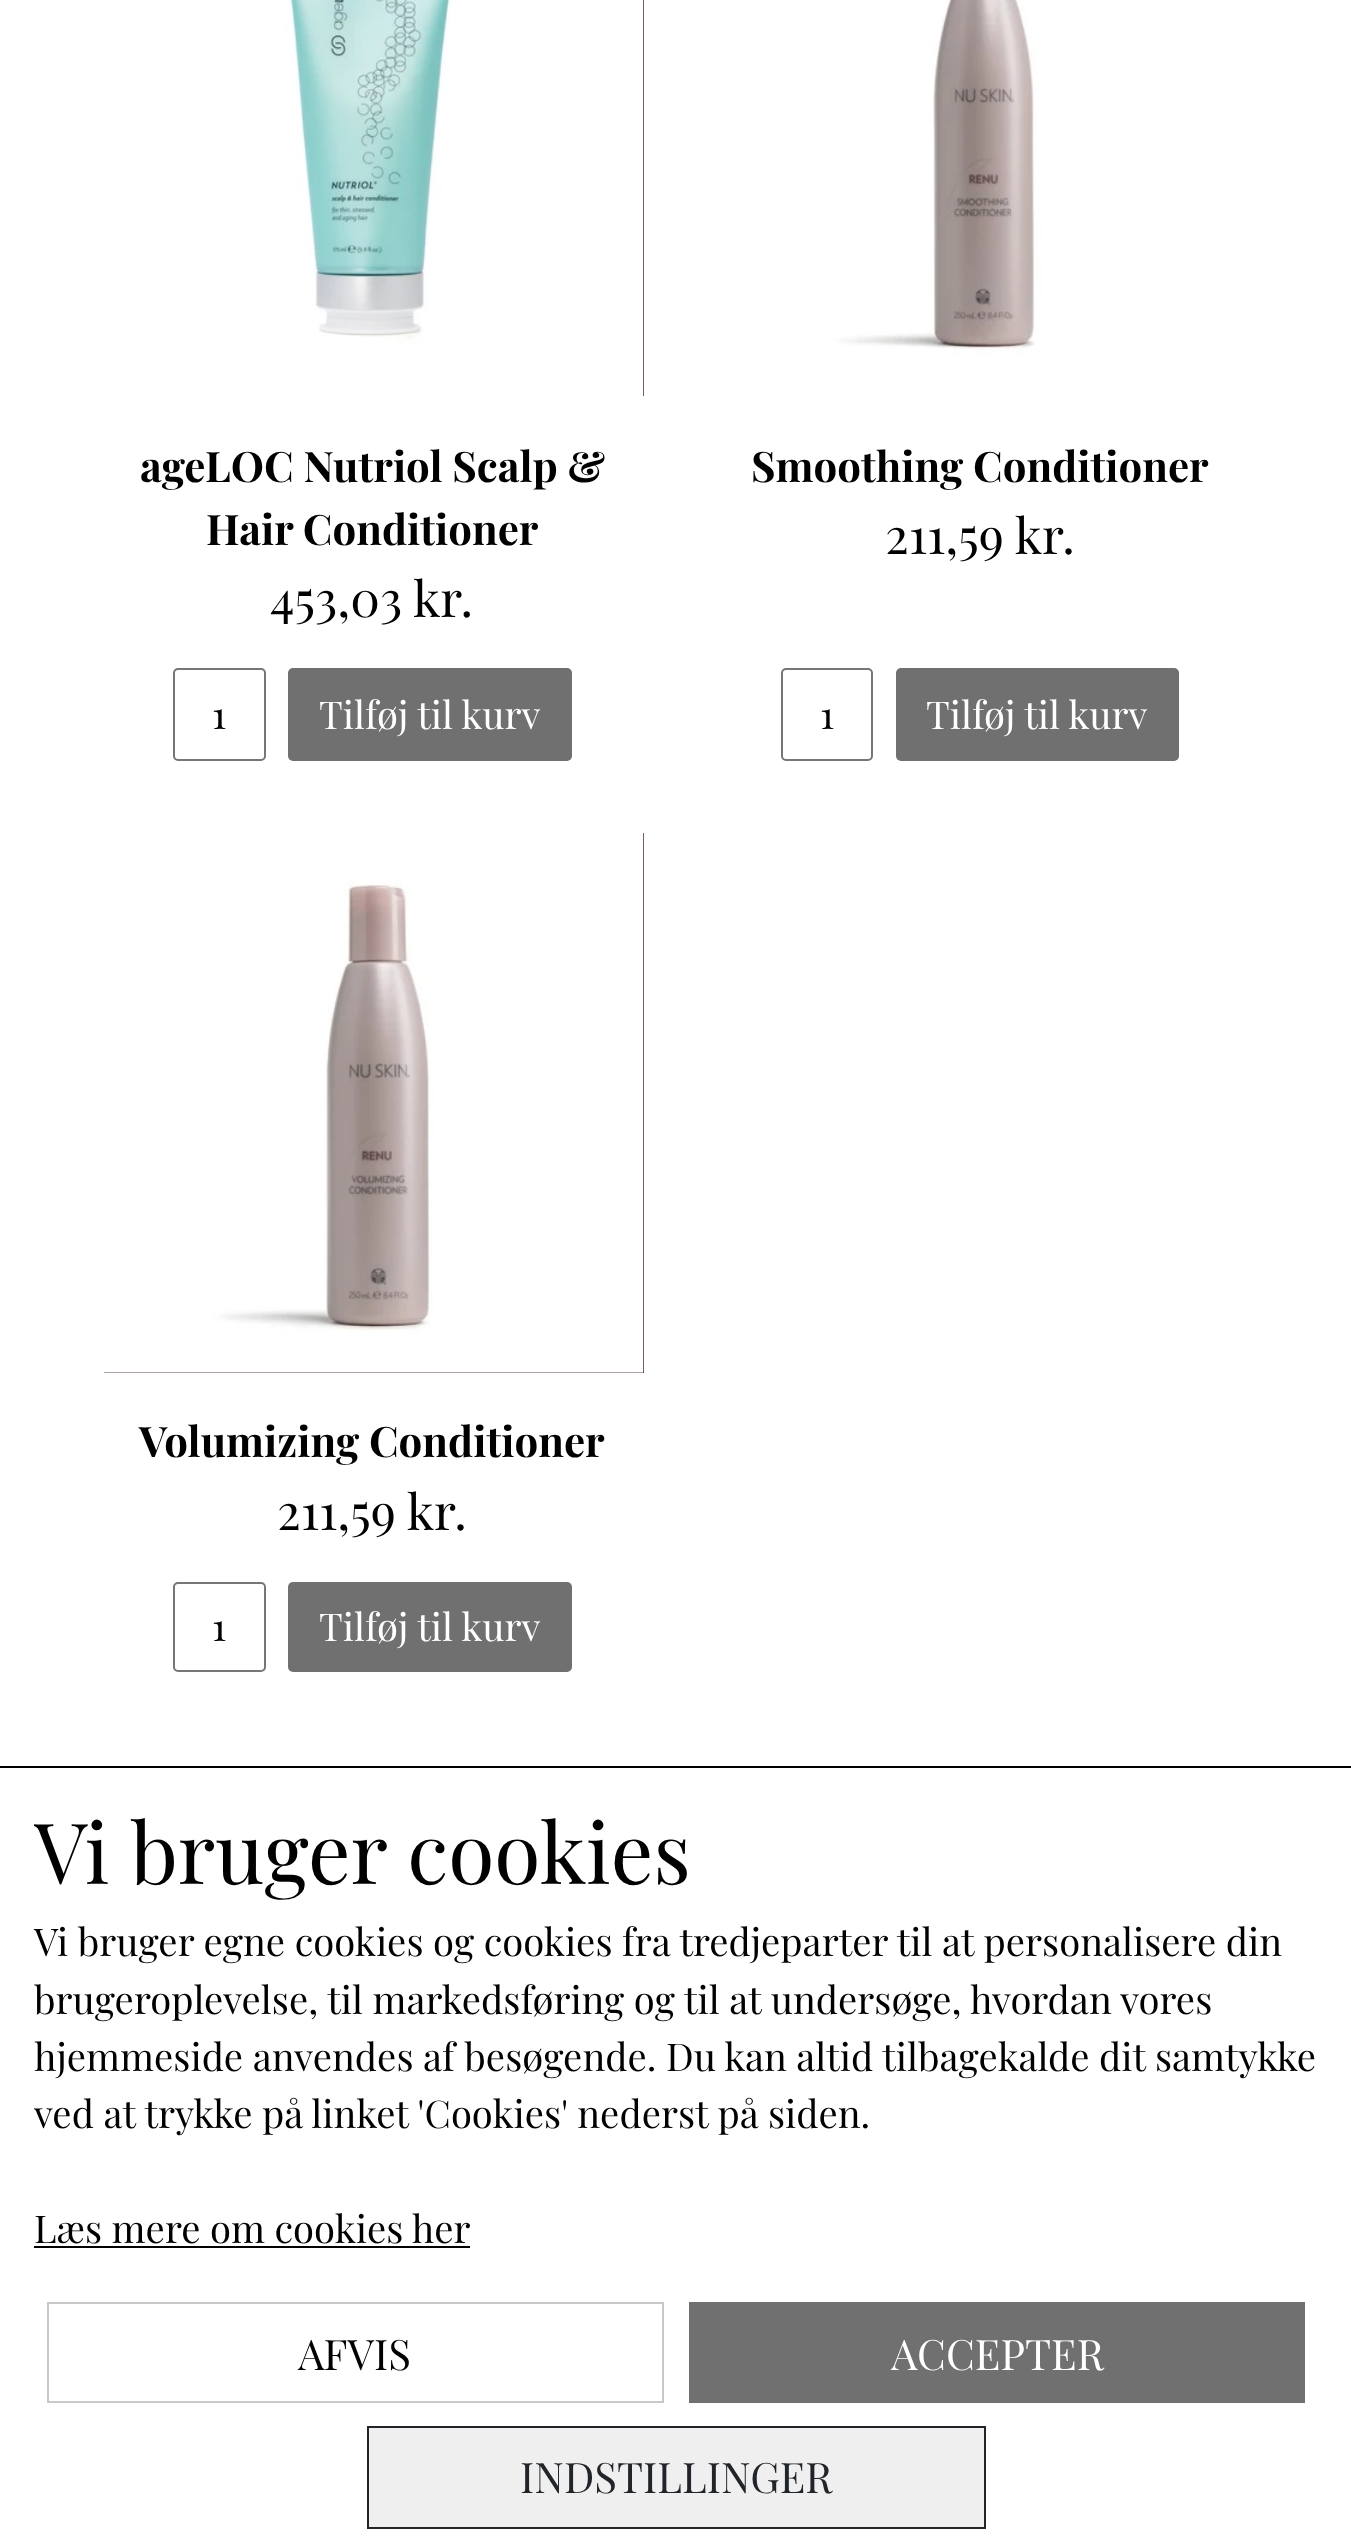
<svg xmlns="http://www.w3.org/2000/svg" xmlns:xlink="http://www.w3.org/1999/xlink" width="1351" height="2546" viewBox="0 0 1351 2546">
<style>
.cls-1{font:bold 42px Playfair Display;fill:#000000}
.cls-2{font:49.5px Playfair Display;fill:#000000}
.cls-3{font:38.25px Playfair Display;fill:#000000}
.cls-4{font:38.25px Playfair Display;fill:#ffffff}
.cls-5{font:84.25px Playfair Display;fill:#000000}
.cls-6{font:42px Playfair Display;fill:#000000}
.cls-7{font:42px Playfair Display;fill:#ffffff}
.cls-8{font:42px Playfair Display;fill:#212529}
</style>
<defs>
<clipPath id="clip1"><rect x="34" y="1787" width="1285" height="355"/></clipPath>
</defs>
<rect width="100%" height="100%" fill="#ffffff"/>
<rect fill="#44273c" x="643" y="0" width="1" height="396"/>
<image xlink:href="image0.png" x="104" y="0" width="540" height="396"/>
<rect fill="none" stroke="#767676" stroke-width="2" x="174" y="669" width="91" height="91" rx="4"/>
<rect fill="#707070" x="288" y="668" width="284" height="93" rx="5"/>
<image xlink:href="image1.png" x="711" y="0" width="540" height="396"/>
<rect fill="none" stroke="#767676" stroke-width="2" x="782" y="669" width="90" height="91" rx="4"/>
<rect fill="#707070" x="896" y="668" width="283" height="93" rx="5"/>
<rect fill="#44273c" x="104" y="833" width="540" height="540"/>
<image xlink:href="image2.png" x="104" y="833" width="540" height="540"/>
<rect fill="none" stroke="#767676" stroke-width="2" x="174" y="1583" width="91" height="88" rx="4"/>
<rect fill="#707070" x="288" y="1582" width="284" height="90" rx="5"/>
<rect fill="#000000" x="0" y="1766" width="1351" height="2"/>
<rect fill="#000000" x="34" y="2246" width="436" height="2"/>
<rect fill="none" stroke="#c8c8c8" stroke-width="2" x="48" y="2303" width="615" height="99"/>
<rect fill="#707070" x="689" y="2302" width="616" height="101"/>
<rect fill="#efefef" stroke="#212529" stroke-width="2" x="368" y="2427" width="617" height="101"/>
<text class="cls-1" x="140" y="482">ageLOC Nutriol Scalp &amp;</text>
<text class="cls-1" x="206" y="545">Hair Conditioner</text>
<text class="cls-2" x="270" y="617">453,03 kr.</text>
<text class="cls-3" x="212" y="729">1</text>
<text class="cls-4" x="319" y="729">Tilføj til kurv</text>
<text class="cls-1" x="751" y="482">Smoothing Conditioner</text>
<text class="cls-2" x="885" y="554">211,59 kr.</text>
<text class="cls-3" x="820" y="729">1</text>
<text class="cls-4" x="926" y="729">Tilføj til kurv</text>
<text class="cls-1" x="139" y="1457">Volumizing Conditioner</text>
<text class="cls-2" x="277" y="1530">211,59 kr.</text>
<text class="cls-3" x="212" y="1641">1</text>
<text class="cls-4" x="319" y="1641">Tilføj til kurv</text>
<g clip-path="url(#clip1)">
<text class="cls-5" x="34" y="1884">Vi bruger cookies</text>
</g>
<text class="cls-3"><tspan x="34" y="1956">Vi bruger egne cookies og cookies fra tredjeparter til at personalisere din</tspan><tspan x="34" y="2014">brugeroplevelse, til markedsføring og til at undersøge, hvordan vores</tspan><tspan x="34" y="2071">hjemmeside anvendes af besøgende. Du kan altid tilbagekalde dit samtykke</tspan><tspan x="34" y="2128">ved at trykke på linket 'Cookies' nederst på siden.</tspan></text>
<text class="cls-3" x="34" y="2243">Læs mere om cookies her</text>
<text class="cls-6" x="298" y="2370">AFVIS</text>
<text class="cls-7" x="891" y="2370">ACCEPTER</text>
<text class="cls-8" x="520" y="2493">INDSTILLINGER</text>
</svg>
